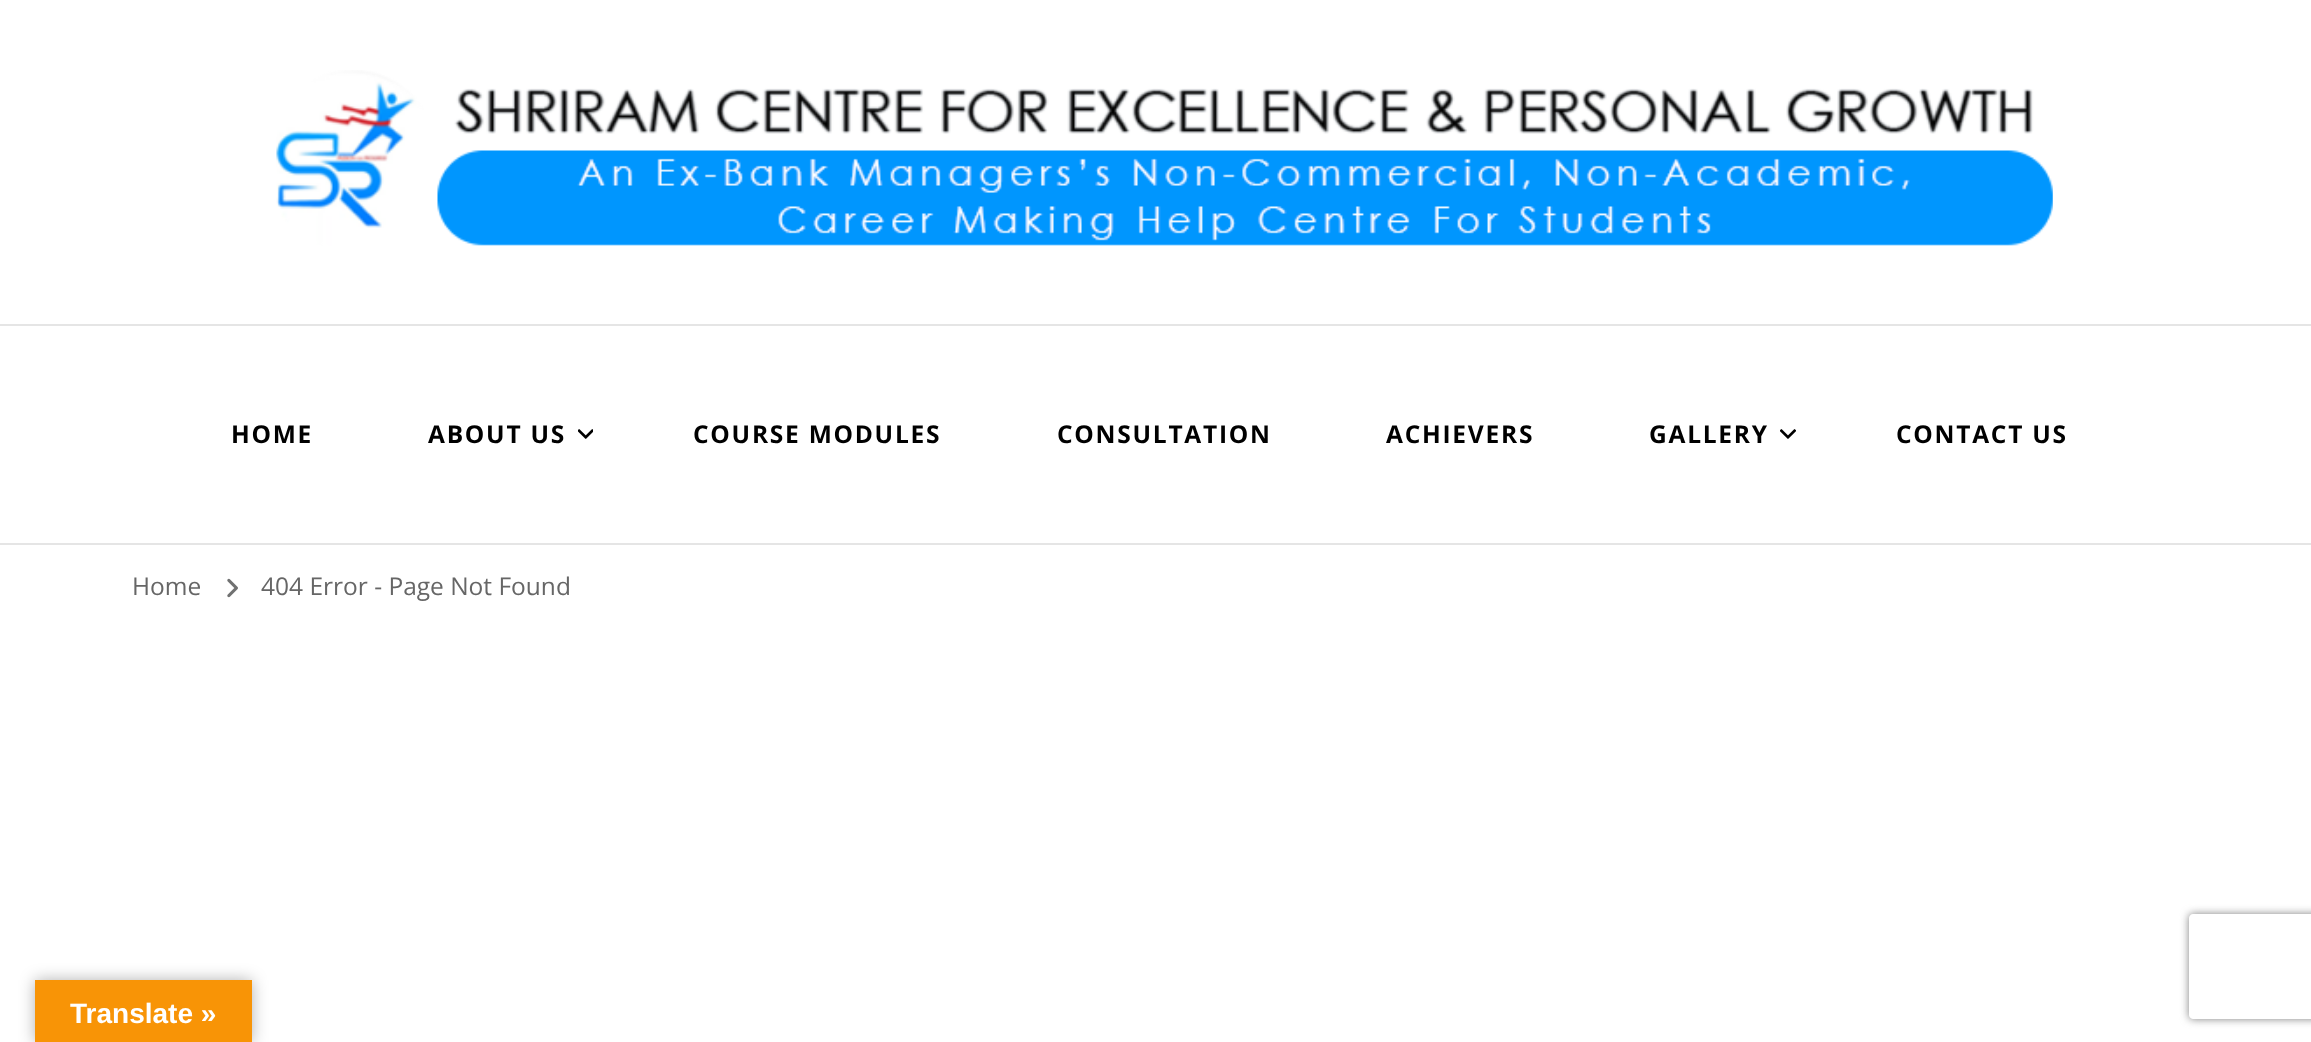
<svg xmlns="http://www.w3.org/2000/svg" xmlns:xlink="http://www.w3.org/1999/xlink" width="2311" height="1042" viewBox="0 0 2311 1042">
<style>
.cls-1{font:bold 24.5px Open Sans;letter-spacing:1.75px;fill:#000000}
.cls-2{font:24.5px Open Sans;fill:#666666}
.cls-3{font:bold 28px Liberation Sans;fill:#ffffff}
</style>
<defs>
<clipPath id="clip1"><path d="M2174 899H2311V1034H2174ZM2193 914H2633C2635 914 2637 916 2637 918V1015C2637 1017 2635 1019 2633 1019H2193C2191 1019 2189 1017 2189 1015V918C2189 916 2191 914 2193 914Z" clip-rule="evenodd"/></clipPath>
</defs>
<rect width="100%" height="100%" fill="#ffffff"/>
<rect fill="#e5e5e5" x="0" y="543" width="2311" height="2"/>
<rect fill="#e5e5e5" x="0" y="324" width="2311" height="2"/>
<image xlink:href="image0.png" x="276" y="70" width="1777" height="176"/>
<image xlink:href="image1.png" x="578" y="429" width="15" height="10"/>
<image xlink:href="image2.png" x="1780" y="429" width="16" height="10"/>
<image xlink:href="image3.png" x="227" y="578" width="11" height="20"/>
<rect fill="#000000" fill-opacity="0.3" filter="blur(8px)" x="35" y="980" width="217" height="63"/>
<rect fill="#f89406" x="35" y="980" width="217" height="62"/>
<g clip-path="url(#clip1)">
<rect fill="#808080" filter="blur(4.5px)" x="2189" y="914" width="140" height="105" rx="4"/>
</g>
<text class="cls-1" x="231" y="443">HOME</text>
<text class="cls-1" x="428" y="443">ABOUT US</text>
<text class="cls-1" x="693" y="443">COURSE MODULES</text>
<text class="cls-1" x="1057" y="443">CONSULTATION</text>
<text class="cls-1" x="1386" y="443">ACHIEVERS</text>
<text class="cls-1" x="1649" y="443">GALLERY</text>
<text class="cls-1" x="1896" y="443">CONTACT US</text>
<text class="cls-2" x="132" y="595">Home</text>
<text class="cls-2" x="261" y="595">404 Error - Page Not Found</text>
<text class="cls-3" x="70" y="1023">Translate »</text>
</svg>
